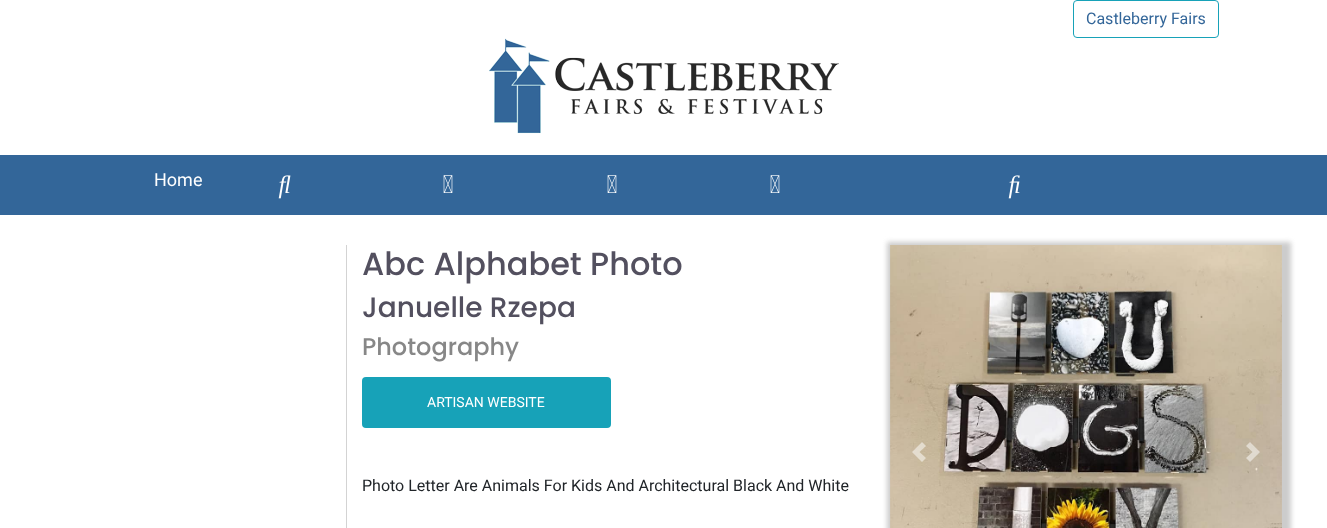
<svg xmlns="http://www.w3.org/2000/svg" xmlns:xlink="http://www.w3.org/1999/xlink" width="1327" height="528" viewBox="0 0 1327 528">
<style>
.cls-1{font:16px Roboto;fill:#336699}
.cls-2{font:18px Roboto;fill:#ffffff}
.cls-3{font:500 32px Poppins;fill:#53505f}
.cls-4{font:500 28px Poppins;fill:#53505f}
.cls-5{font:500 24px Poppins;fill:#878787}
.cls-6{font:14px Roboto;fill:#ffffff}
.cls-7{font:16px Roboto;fill:#212529}
</style>
<rect width="100%" height="100%" fill="#ffffff"/>
<rect fill="none" stroke="#17a2b8" x="1073.5" y="0.5" width="145" height="37" rx="3.5"/>
<image xlink:href="image0.png" x="489" y="38" width="350" height="96"/>
<rect fill="#336699" x="0" y="155" width="1327" height="60"/>
<image xlink:href="image1.png" x="278" y="175" width="13" height="24"/>
<image xlink:href="image2.png" x="443" y="175" width="10" height="18"/>
<image xlink:href="image2.png" x="607" y="175" width="10" height="18"/>
<image xlink:href="image2.png" x="770" y="175" width="10" height="18"/>
<image xlink:href="image3.png" x="1008" y="175" width="12" height="24"/>
<rect fill="#d3d3d3" x="346" y="245" width="1" height="283"/>
<rect fill="#17a2b8" x="362" y="377" width="249" height="51" rx="4"/>
<rect fill="#cccccc" filter="blur(2.5px)" x="887" y="242" width="404" height="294"/>
<image xlink:href="image4.png" x="890" y="245" width="392" height="283"/>
<path fill="#ffffff" fill-opacity="0.5" d="M922 442L912 452L922 462L926 458L919.5 452L926 446Z"/>
<path fill="#ffffff" fill-opacity="0.5" d="M1250 442L1246 446L1252.5 452L1246 458L1250 462L1260 452Z"/>
<text class="cls-1" x="1086" y="24">Castleberry Fairs</text>
<text class="cls-2" x="154" y="186">Home</text>
<text class="cls-3" x="362" y="275">Abc Alphabet Photo</text>
<text class="cls-4" x="362" y="317">Januelle Rzepa</text>
<text class="cls-5" x="362" y="355">Photography</text>
<text class="cls-6" x="427" y="407">ARTISAN WEBSITE</text>
<text class="cls-7" x="362" y="491">Photo Letter Are Animals For Kids And Architectural Black And White</text>
</svg>
